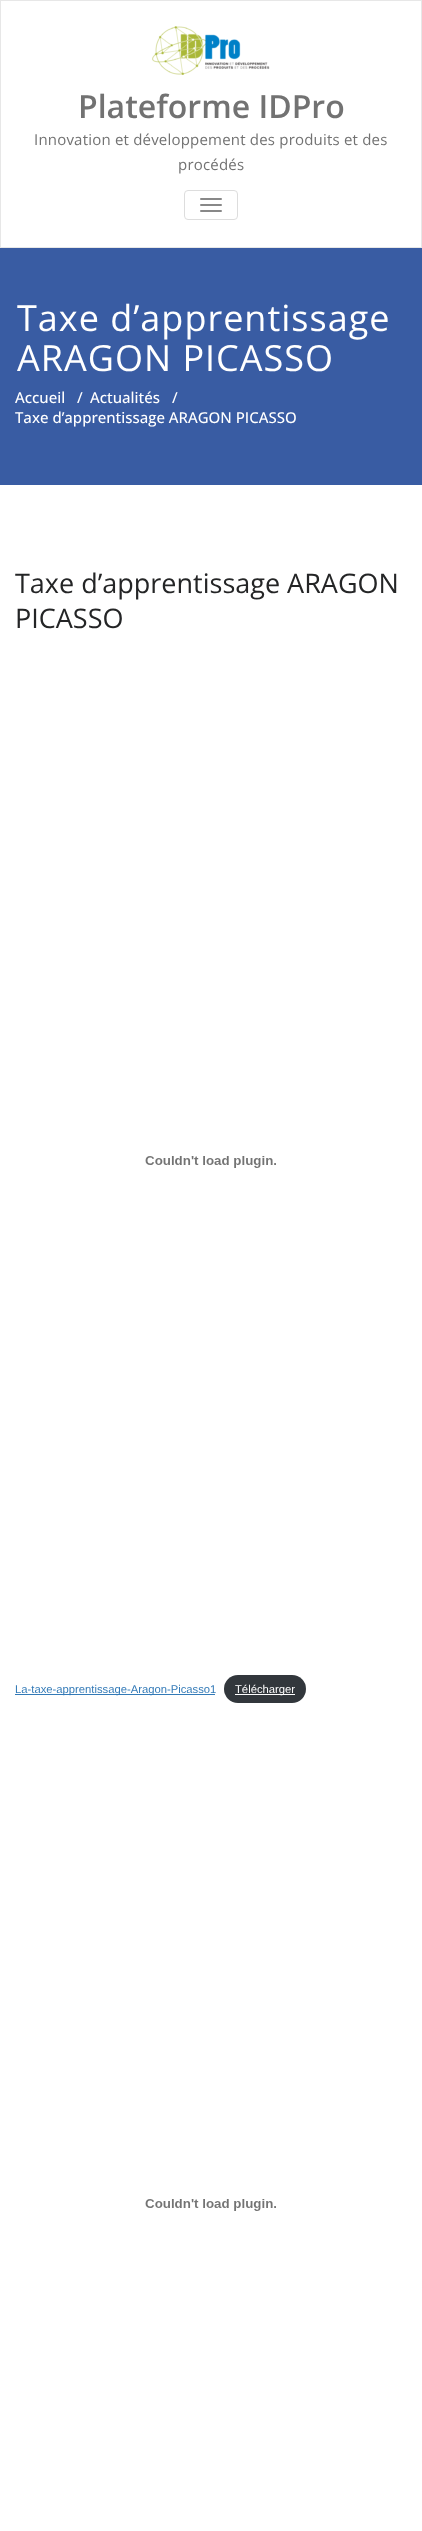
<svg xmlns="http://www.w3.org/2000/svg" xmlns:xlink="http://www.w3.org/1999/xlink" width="422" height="2531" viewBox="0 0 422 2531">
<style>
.cls-1{font:600 32px Open Sans;fill:#727272}
.cls-2{font:15px Open Sans;letter-spacing:0.2px;fill:#727272}
.cls-3{font:36px Open Sans;letter-spacing:1px;fill:#ffffff}
.cls-4{font:500 15px Open Sans;fill:#ffffff}
.cls-5{font:27px Open Sans;fill:#242526}
.cls-6{font:11.25px Liberation Sans;fill:#337ab7}
.cls-7{font:11.25px Liberation Sans;fill:#ffffff}
</style>
<rect width="100%" height="100%" fill="#ffffff"/>
<rect fill="none" stroke="#e7e7e7" x="0.5" y="0.5" width="421" height="247"/>
<image xlink:href="image0.png" x="152" y="26" width="118" height="49"/>
<rect fill="none" stroke="#dddddd" x="184.5" y="190.5" width="53" height="29" rx="3.5"/>
<rect fill="#888888" x="200" y="198" width="22" height="2" rx="1"/>
<rect fill="#888888" x="200" y="204" width="22" height="2" rx="1"/>
<rect fill="#888888" x="200" y="210" width="22" height="2" rx="1"/>
<rect fill="#395ca3" x="0" y="248" width="422" height="237"/>
<image xlink:href="image1.png" x="145" y="1156" width="131" height="12"/>
<rect fill="#337ab7" x="15" y="1694" width="200" height="1"/>
<rect fill="#32373c" x="224" y="1675" width="82" height="28" rx="14"/>
<rect fill="#ffffff" x="235" y="1694" width="60" height="1"/>
<image xlink:href="image1.png" x="145" y="2199" width="131" height="12"/>
<text class="cls-1" x="78" y="118">Plateforme IDPro</text>
<text class="cls-2" x="34" y="145">Innovation et développement des produits et des</text>
<text class="cls-2" x="178" y="170">procédés</text>
<text class="cls-3"><tspan x="17" y="331">Taxe d’apprentissage</tspan><tspan x="17" y="371">ARAGON PICASSO</tspan></text>
<text class="cls-4" x="15" y="403">Accueil</text>
<text class="cls-4" x="77" y="403">/</text>
<text class="cls-4" x="90" y="403">Actualités</text>
<text class="cls-4" x="172" y="403">/</text>
<text class="cls-4" x="15" y="423">Taxe d’apprentissage ARAGON PICASSO</text>
<text class="cls-5"><tspan x="15" y="593">Taxe d’apprentissage ARAGON</tspan><tspan x="15" y="628">PICASSO</tspan></text>
<text class="cls-6" x="15" y="1693">La-taxe-apprentissage-Aragon-Picasso1</text>
<text class="cls-7" x="235" y="1693">Télécharger</text>
</svg>
